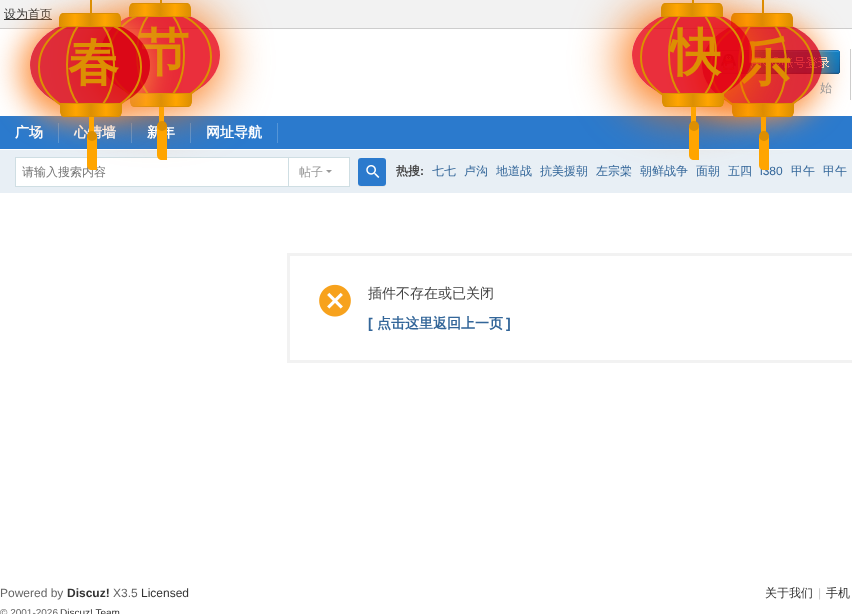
<svg xmlns="http://www.w3.org/2000/svg" xmlns:xlink="http://www.w3.org/1999/xlink" width="852" height="614" viewBox="0 0 852 614">
<style>
.cls-1{font:500 12px WenQuanYi Zen Hei;fill:#333333}
.cls-2{font:bold 51px WenQuanYi Zen Hei;fill:#dc8f03}
.cls-3{font:500 12px WenQuanYi Zen Hei;fill:#999999}
.cls-4{font:bold 14px WenQuanYi Zen Hei;fill:#ffffff}
.cls-5{font:500 12px WenQuanYi Zen Hei;fill:#757575}
.cls-6{font:bold 12px WenQuanYi Zen Hei;fill:#444444}
.cls-7{font:bold 12px Liberation Sans;fill:#444444}
.cls-8{font:500 12px WenQuanYi Zen Hei;fill:#336699}
.cls-9{font:12px Liberation Sans;fill:#336699}
.cls-10{font:500 14px WenQuanYi Zen Hei;fill:#444444}
.cls-11{font:bold 14px Liberation Sans;fill:#336699}
.cls-12{font:bold 14px WenQuanYi Zen Hei;fill:#336699}
.cls-13{font:12px Liberation Sans;fill:#666666}
.cls-14{font:bold 12px Liberation Sans;fill:#333333}
.cls-15{font:12px Liberation Sans;fill:#333333}
.cls-16{font:10px Liberation Sans;fill:#666666}
.cls-17{font:10px Liberation Sans;fill:#333333}
.cls-18{font:12px Liberation Sans;fill:#cccccc}
</style>
<defs>
<clipPath id="clip1"><path d="M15 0H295V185H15ZM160 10C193 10 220 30 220 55C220 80 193 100 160 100C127 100 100 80 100 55C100 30 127 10 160 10Z" clip-rule="evenodd"/></clipPath>
<clipPath id="clip2"><path d="M134 3H186C189 3 191 5 191 8V17H129V8C129 5 131 3 134 3Z"/></clipPath>
<linearGradient id="g1" gradientUnits="userSpaceOnUse" x1="130" y1="10" x2="190" y2="10"><stop offset="0" stop-color="#dc8f03"/><stop offset="0.25" stop-color="#ffa500"/><stop offset="0.5" stop-color="#dc8f03"/><stop offset="0.75" stop-color="#ffa500"/><stop offset="1" stop-color="#dc8f03"/></linearGradient>
<clipPath id="clip3"><path d="M130 93H192V102C192 105 190 107 187 107H135C132 107 130 105 130 102Z"/></clipPath>
<linearGradient id="g2" gradientUnits="userSpaceOnUse" x1="131" y1="100" x2="191" y2="100"><stop offset="0" stop-color="#dc8f03"/><stop offset="0.25" stop-color="#ffa500"/><stop offset="0.5" stop-color="#dc8f03"/><stop offset="0.75" stop-color="#ffa500"/><stop offset="1" stop-color="#dc8f03"/></linearGradient>
<clipPath id="clip4"><path d="M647 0H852V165H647ZM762 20C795 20 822 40 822 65C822 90 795 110 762 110C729 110 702 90 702 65C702 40 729 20 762 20Z" clip-rule="evenodd"/></clipPath>
<clipPath id="clip5"><path d="M736 13H788C791 13 793 15 793 18V27H731V18C731 15 733 13 736 13Z"/></clipPath>
<linearGradient id="g3" gradientUnits="userSpaceOnUse" x1="732" y1="20" x2="792" y2="20"><stop offset="0" stop-color="#dc8f03"/><stop offset="0.25" stop-color="#ffa500"/><stop offset="0.5" stop-color="#dc8f03"/><stop offset="0.75" stop-color="#ffa500"/><stop offset="1" stop-color="#dc8f03"/></linearGradient>
<clipPath id="clip6"><path d="M732 103H794V112C794 115 792 117 789 117H737C734 117 732 115 732 112Z"/></clipPath>
<linearGradient id="g4" gradientUnits="userSpaceOnUse" x1="733" y1="110" x2="793" y2="110"><stop offset="0" stop-color="#dc8f03"/><stop offset="0.25" stop-color="#ffa500"/><stop offset="0.5" stop-color="#dc8f03"/><stop offset="0.75" stop-color="#ffa500"/><stop offset="1" stop-color="#dc8f03"/></linearGradient>
<clipPath id="clip7"><path d="M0 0H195V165H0ZM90 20C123 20 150 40 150 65C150 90 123 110 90 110C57 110 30 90 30 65C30 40 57 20 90 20Z" clip-rule="evenodd"/></clipPath>
<clipPath id="clip8"><path d="M64 13H116C119 13 121 15 121 18V27H59V18C59 15 61 13 64 13Z"/></clipPath>
<linearGradient id="g5" gradientUnits="userSpaceOnUse" x1="60" y1="20" x2="120" y2="20"><stop offset="0" stop-color="#dc8f03"/><stop offset="0.25" stop-color="#ffa500"/><stop offset="0.5" stop-color="#dc8f03"/><stop offset="0.75" stop-color="#ffa500"/><stop offset="1" stop-color="#dc8f03"/></linearGradient>
<clipPath id="clip9"><path d="M60 103H122V112C122 115 120 117 117 117H65C62 117 60 115 60 112Z"/></clipPath>
<linearGradient id="g6" gradientUnits="userSpaceOnUse" x1="61" y1="110" x2="121" y2="110"><stop offset="0" stop-color="#dc8f03"/><stop offset="0.25" stop-color="#ffa500"/><stop offset="0.5" stop-color="#dc8f03"/><stop offset="0.75" stop-color="#ffa500"/><stop offset="1" stop-color="#dc8f03"/></linearGradient>
<clipPath id="clip10"><path d="M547 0H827V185H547ZM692 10C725 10 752 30 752 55C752 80 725 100 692 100C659 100 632 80 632 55C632 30 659 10 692 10Z" clip-rule="evenodd"/></clipPath>
<clipPath id="clip11"><path d="M666 3H718C721 3 723 5 723 8V17H661V8C661 5 663 3 666 3Z"/></clipPath>
<linearGradient id="g7" gradientUnits="userSpaceOnUse" x1="662" y1="10" x2="722" y2="10"><stop offset="0" stop-color="#dc8f03"/><stop offset="0.25" stop-color="#ffa500"/><stop offset="0.5" stop-color="#dc8f03"/><stop offset="0.75" stop-color="#ffa500"/><stop offset="1" stop-color="#dc8f03"/></linearGradient>
<clipPath id="clip12"><path d="M662 93H724V102C724 105 722 107 719 107H667C664 107 662 105 662 102Z"/></clipPath>
<linearGradient id="g8" gradientUnits="userSpaceOnUse" x1="663" y1="100" x2="723" y2="100"><stop offset="0" stop-color="#dc8f03"/><stop offset="0.25" stop-color="#ffa500"/><stop offset="0.5" stop-color="#dc8f03"/><stop offset="0.75" stop-color="#ffa500"/><stop offset="1" stop-color="#dc8f03"/></linearGradient>
</defs>
<rect width="100%" height="100%" fill="#ffffff"/>
<rect fill="#f2f2f2" x="0" y="0" width="852" height="28"/>
<rect fill="#cdcdcd" x="0" y="28" width="852" height="1"/>
<rect fill="#333333" x="4" y="19" width="48" height="1"/>
<rect fill="#2b7acd" x="0" y="116" width="852" height="33"/>
<rect fill="#5595d7" x="58" y="123" width="1" height="20"/>
<rect fill="#5595d7" x="131" y="123" width="1" height="20"/>
<rect fill="#5595d7" x="190" y="123" width="1" height="20"/>
<rect fill="#5595d7" x="277" y="123" width="1" height="20"/>
<rect fill="#e8eff5" x="0" y="150" width="852" height="43"/>
<rect fill="#cfdee3" x="287" y="157" width="63" height="1"/>
<rect fill="#cfdee3" x="349" y="157" width="1" height="30"/>
<rect fill="#cfdee3" x="287" y="186" width="63" height="1"/>
<rect fill="#ffffff" stroke="#cfdee3" x="15.5" y="157.5" width="273" height="29"/>
<rect fill="#ffffff" x="289" y="158" width="60" height="28"/>
<g clip-path="url(#clip1)">
<rect fill="#fa6c00" filter="blur(25px)" x="91" y="11" width="128" height="98" rx="49"/>
</g>
<ellipse fill="#e70211" fill-opacity="0.8" cx="160" cy="55" rx="60" ry="45"/>
<ellipse fill="#d8000f" fill-opacity="0.1" cx="160" cy="57" rx="52" ry="47"/>
<path fill="none" stroke="#dc8f03" stroke-width="2" d="M160 11C188 11 211 31.5 211 57C211 82.5 188 103 160 103C132 103 109 82.5 109 57C109 31.5 132 11 160 11Z"/>
<ellipse fill="#d8000f" fill-opacity="0.1" cx="160.5" cy="55" rx="24.5" ry="47"/>
<path fill="none" stroke="#dc8f03" stroke-width="2" d="M160.5 9C173.5 9 184 29.5 184 55C184 80.5 173.5 101 160.5 101C147.5 101 137 80.5 137 55C137 29.5 147.5 9 160.5 9Z"/>
<rect fill="#dc8f03" x="160" y="0" width="2" height="10"/>
<g clip-path="url(#clip2)">
<rect fill="url(#g1)" x="130" y="3" width="60" height="13"/>
</g>
<path fill="none" stroke="#dc8f03" d="M134 3.5H186C188.5 3.5 190.5 5.5 190.5 8V16.5H129.5V8C129.5 5.5 131.5 3.5 134 3.5Z"/>
<g clip-path="url(#clip3)">
<rect fill="url(#g2)" x="131" y="94" width="60" height="13"/>
</g>
<path fill="none" stroke="#dc8f03" d="M130.5 93.5H191.5V102C191.5 104.5 189.5 106.5 187 106.5H135C132.5 106.5 130.5 104.5 130.5 102Z"/>
<rect fill="#cdcdcd" x="850" y="49" width="1" height="51"/>
<image xlink:href="image0.png" x="716" y="50" width="124" height="24"/>
<g clip-path="url(#clip4)">
<rect fill="#fc903d" filter="blur(15px)" x="693" y="21" width="128" height="98" rx="49"/>
</g>
<rect fill="#ffa500" x="761" y="117" width="5" height="20"/>
<path fill="#999999" d="M326 170H332L329 173Z"/>
<path fill="#e5e5e5" d="M358 183C358 187.5 361 187 364.5 187H379.5C383 187 386 187.5 386 183C386 184.5 384.5 186 383 186H361C359.5 186 358 184.5 358 183Z"/>
<rect fill="#2b7acd" x="358" y="158" width="28" height="28" rx="3"/>
<image xlink:href="image1.png" x="366" y="165" width="14" height="13"/>
<rect fill="none" stroke="#f2f2f2" stroke-width="3" x="288.5" y="254.5" width="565" height="107"/>
<image xlink:href="image2.png" x="319" y="284" width="32" height="33"/>
<text class="cls-1" x="4" y="18">设为首页</text>
<text class="cls-2" x="138" y="70">节</text>
<text class="cls-3" x="820" y="92">始</text>
<ellipse fill="#d8000f" fill-opacity="0.8" cx="762" cy="65" rx="60" ry="45"/>
<ellipse fill="#d8000f" fill-opacity="0.1" cx="762" cy="67" rx="52" ry="47"/>
<path fill="none" stroke="#dc8f03" stroke-width="2" d="M762 21C790 21 813 41.5 813 67C813 92.5 790 113 762 113C734 113 711 92.5 711 67C711 41.5 734 21 762 21Z"/>
<ellipse fill="#d8000f" fill-opacity="0.1" cx="762.5" cy="65" rx="24.5" ry="47"/>
<path fill="none" stroke="#dc8f03" stroke-width="2" d="M762.5 19C775.5 19 786 39.5 786 65C786 90.5 775.5 111 762.5 111C749.5 111 739 90.5 739 65C739 39.5 749.5 19 762.5 19Z"/>
<rect fill="#dc8f03" x="762" y="0" width="2" height="20"/>
<g clip-path="url(#clip5)">
<rect fill="url(#g3)" x="732" y="13" width="60" height="13"/>
</g>
<path fill="none" stroke="#dc8f03" d="M736 13.5H788C790.5 13.5 792.5 15.5 792.5 18V26.5H731.5V18C731.5 15.5 733.5 13.5 736 13.5Z"/>
<g clip-path="url(#clip6)">
<rect fill="url(#g4)" x="733" y="104" width="60" height="13"/>
</g>
<path fill="none" stroke="#dc8f03" d="M732.5 103.5H793.5V112C793.5 114.5 791.5 116.5 789 116.5H737C734.5 116.5 732.5 114.5 732.5 112Z"/>
<text class="cls-2" x="740" y="80">乐</text>
<text class="cls-4" x="15" y="137">广场</text>
<text class="cls-4" x="74" y="137">心情墙</text>
<text class="cls-4" x="147" y="137">新年</text>
<rect fill="#ffa500" x="159" y="107" width="5" height="20"/>
<path fill="#ffa500" d="M157 125H167V160H162C159 160 157 158 157 155Z"/>
<circle fill="#dc8f03" cx="162" cy="126" r="5"/>
<g clip-path="url(#clip7)">
<rect fill="#fc903d" filter="blur(15px)" x="21" y="21" width="128" height="98" rx="49"/>
</g>
<ellipse fill="#d8000f" fill-opacity="0.8" cx="90" cy="65" rx="60" ry="45"/>
<ellipse fill="#d8000f" fill-opacity="0.1" cx="90" cy="67" rx="52" ry="47"/>
<path fill="none" stroke="#dc8f03" stroke-width="2" d="M90 21C118 21 141 41.5 141 67C141 92.5 118 113 90 113C62 113 39 92.5 39 67C39 41.5 62 21 90 21Z"/>
<ellipse fill="#d8000f" fill-opacity="0.1" cx="90.5" cy="65" rx="24.5" ry="47"/>
<path fill="none" stroke="#dc8f03" stroke-width="2" d="M90.5 19C103.5 19 114 39.5 114 65C114 90.5 103.5 111 90.5 111C77.5 111 67 90.5 67 65C67 39.5 77.5 19 90.5 19Z"/>
<rect fill="#dc8f03" x="90" y="0" width="2" height="20"/>
<g clip-path="url(#clip8)">
<rect fill="url(#g5)" x="60" y="13" width="60" height="13"/>
</g>
<path fill="none" stroke="#dc8f03" d="M64 13.5H116C118.5 13.5 120.5 15.5 120.5 18V26.5H59.5V18C59.5 15.5 61.5 13.5 64 13.5Z"/>
<g clip-path="url(#clip9)">
<rect fill="url(#g6)" x="61" y="104" width="60" height="13"/>
</g>
<path fill="none" stroke="#dc8f03" d="M60.5 103.5H121.5V112C121.5 114.5 119.5 116.5 117 116.5H65C62.5 116.5 60.5 114.5 60.5 112Z"/>
<rect fill="#ffa500" x="89" y="117" width="5" height="20"/>
<text class="cls-2" x="68" y="80">春</text>
<text class="cls-4" x="206" y="137">网址导航</text>
<text class="cls-5" x="22" y="176">请输入搜索内容</text>
<path fill="#ffa500" d="M87 135H97V170H92C89 170 87 168 87 165Z"/>
<circle fill="#dc8f03" cx="92" cy="136" r="5"/>
<text class="cls-3" x="299" y="176">帖子</text>
<text class="cls-6" x="396" y="175">热搜</text>
<text class="cls-7" x="420" y="175">:</text>
<text class="cls-8" x="432" y="175">七七</text>
<text class="cls-8" x="464" y="175">卢沟</text>
<text class="cls-8" x="496" y="175">地道战</text>
<text class="cls-8" x="540" y="175">抗美援朝</text>
<text class="cls-8" x="596" y="175">左宗棠</text>
<text class="cls-8" x="640" y="175">朝鲜战争</text>
<text class="cls-8" x="696" y="175">面朝</text>
<text class="cls-8" x="728" y="175">五四</text>
<text class="cls-9" x="760" y="175">i380</text>
<path fill="#ffa500" d="M759 135H769V170H764C761 170 759 168 759 165Z"/>
<circle fill="#dc8f03" cx="764" cy="136" r="5"/>
<g clip-path="url(#clip10)">
<rect fill="#fa6c00" filter="blur(25px)" x="623" y="11" width="128" height="98" rx="49"/>
</g>
<ellipse fill="#e70211" fill-opacity="0.8" cx="692" cy="55" rx="60" ry="45"/>
<ellipse fill="#d8000f" fill-opacity="0.1" cx="692" cy="57" rx="52" ry="47"/>
<path fill="none" stroke="#dc8f03" stroke-width="2" d="M692 11C720 11 743 31.5 743 57C743 82.5 720 103 692 103C664 103 641 82.5 641 57C641 31.5 664 11 692 11Z"/>
<ellipse fill="#d8000f" fill-opacity="0.1" cx="692.5" cy="55" rx="24.5" ry="47"/>
<path fill="none" stroke="#dc8f03" stroke-width="2" d="M692.5 9C705.5 9 716 29.5 716 55C716 80.5 705.5 101 692.5 101C679.5 101 669 80.5 669 55C669 29.5 679.5 9 692.5 9Z"/>
<rect fill="#dc8f03" x="692" y="0" width="2" height="10"/>
<g clip-path="url(#clip11)">
<rect fill="url(#g7)" x="662" y="3" width="60" height="13"/>
</g>
<path fill="none" stroke="#dc8f03" d="M666 3.5H718C720.5 3.5 722.5 5.5 722.5 8V16.5H661.5V8C661.5 5.5 663.5 3.5 666 3.5Z"/>
<g clip-path="url(#clip12)">
<rect fill="url(#g8)" x="663" y="94" width="60" height="13"/>
</g>
<path fill="none" stroke="#dc8f03" d="M662.5 93.5H723.5V102C723.5 104.5 721.5 106.5 719 106.5H667C664.5 106.5 662.5 104.5 662.5 102Z"/>
<rect fill="#ffa500" x="691" y="107" width="5" height="20"/>
<path fill="#ffa500" d="M689 125H699V160H694C691 160 689 158 689 155Z"/>
<circle fill="#dc8f03" cx="694" cy="126" r="5"/>
<text class="cls-2" x="670" y="70">快</text>
<text class="cls-8" x="791" y="175">甲午</text>
<text class="cls-8" x="823" y="175">甲午</text>
<text class="cls-10" x="368" y="298">插件不存在或已关闭</text>
<text class="cls-11" x="368" y="328">[</text>
<text class="cls-12" x="377" y="328">点击这里返回上一页</text>
<text class="cls-11" x="506" y="328">]</text>
<text class="cls-13" x="0" y="597">Powered by</text>
<text class="cls-14" x="67" y="597">Discuz!</text>
<text class="cls-13" x="113" y="597">X3.5</text>
<text class="cls-15" x="141" y="597">Licensed</text>
<text class="cls-16" x="0" y="616">© 2001-2026</text>
<text class="cls-17" x="60" y="616">Discuz! Team</text>
<text class="cls-1" x="765" y="597">关于我们</text>
<text class="cls-18" x="818" y="597">|</text>
<text class="cls-1" x="826" y="597">手机</text>
</svg>
